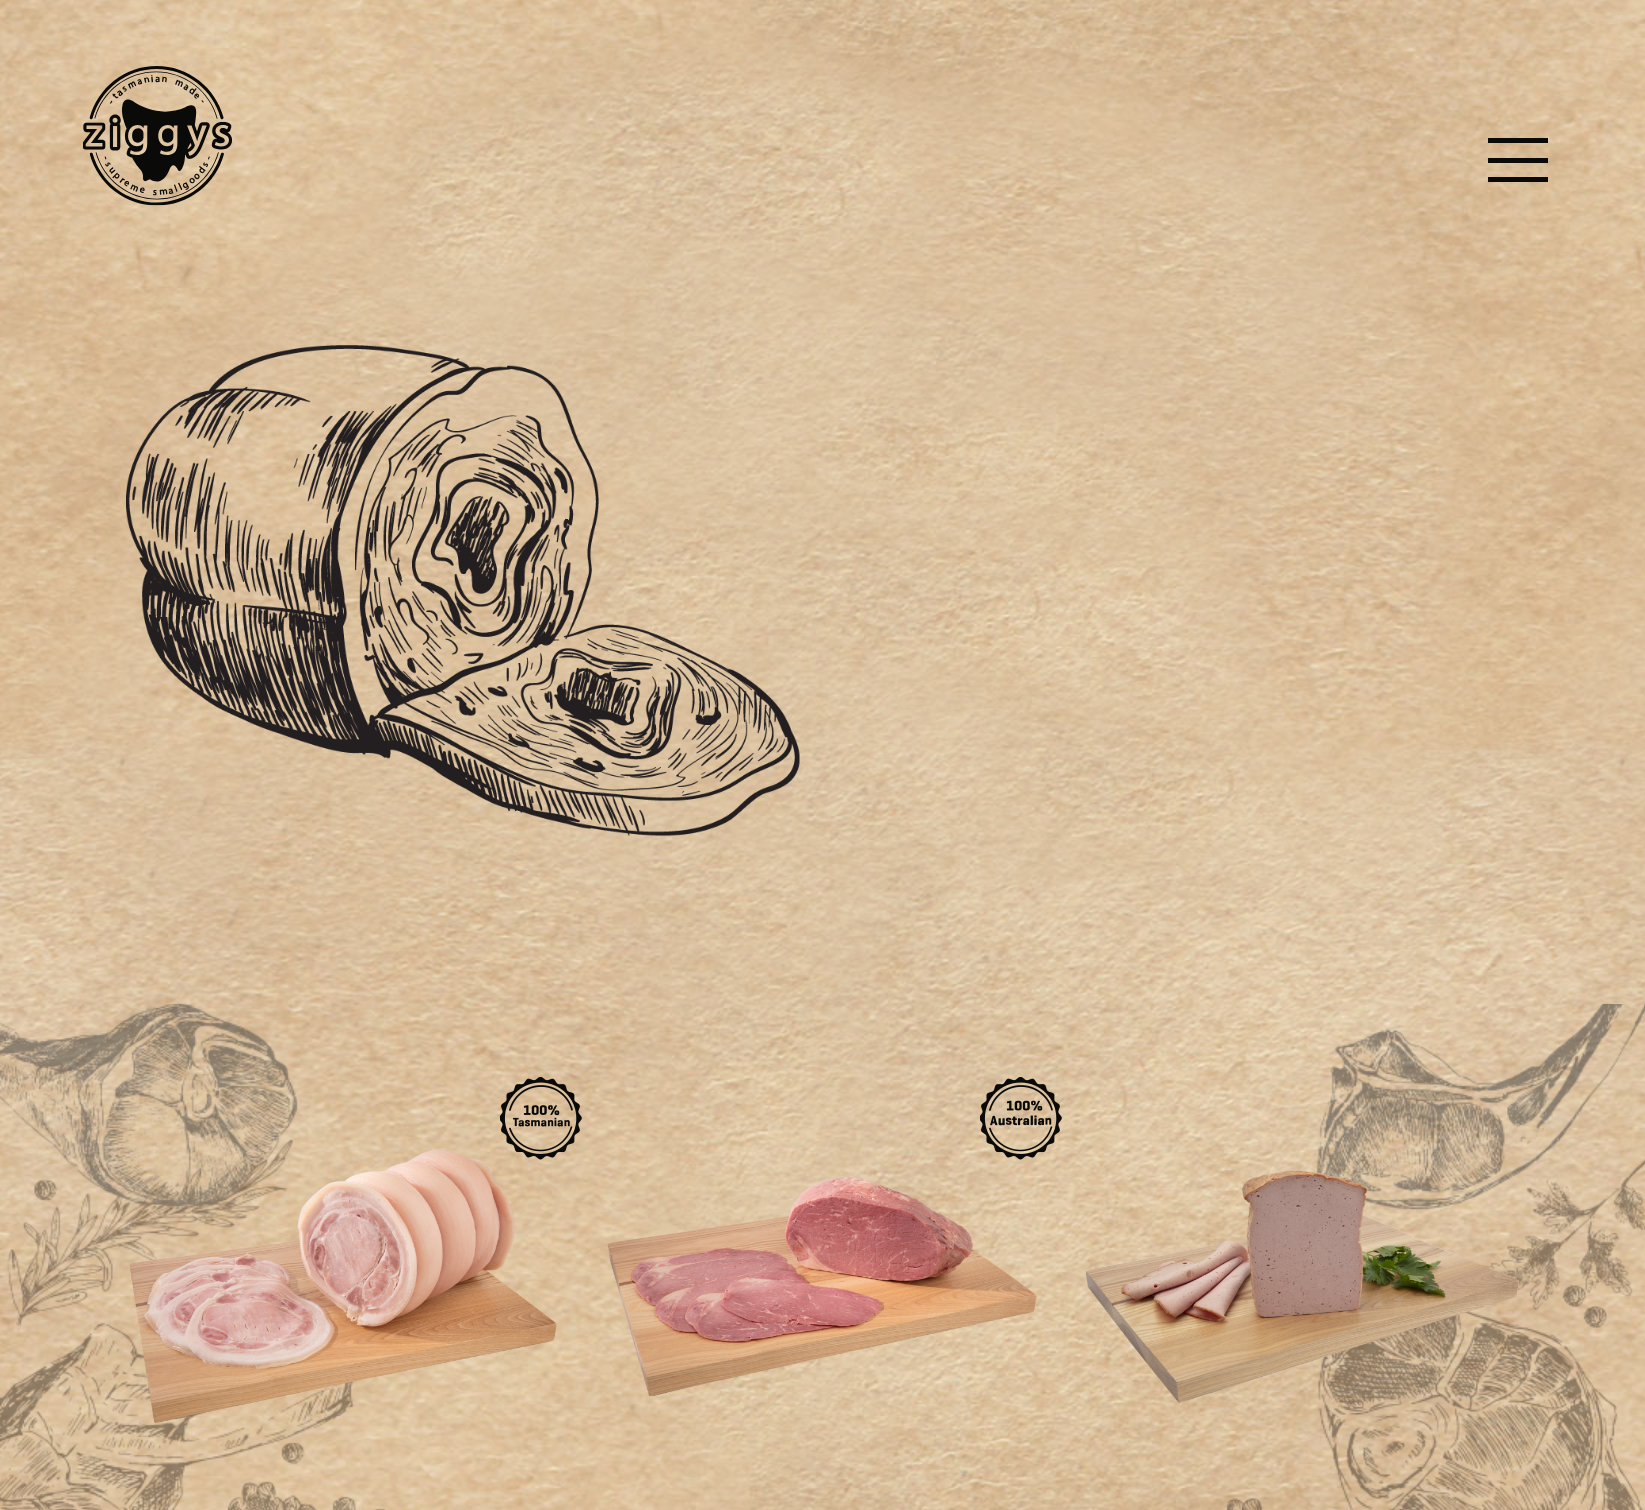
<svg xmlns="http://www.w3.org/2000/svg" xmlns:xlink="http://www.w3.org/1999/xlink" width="1645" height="1510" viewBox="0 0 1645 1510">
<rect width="100%" height="100%" fill="#ffffff"/>
<image xlink:href="image0.png" x="0" y="0" width="1645" height="1510"/>
<image xlink:href="image1.png" x="83" y="66" width="149" height="140"/>
<rect fill="#0a0a09" x="1488" y="138" width="60" height="5"/>
<rect fill="#0a0a09" x="1488" y="158" width="60" height="5"/>
<rect fill="#0a0a09" x="1488" y="177" width="60" height="5"/>
<image xlink:href="image2.png" x="126" y="345" width="674" height="491"/>
<image xlink:href="image3.png" x="0" y="1004" width="386" height="506"/>
<image xlink:href="image4.png" x="1226" y="1004" width="419" height="506"/>
<image xlink:href="image6.png" x="129" y="1150" width="428" height="274"/>
<image xlink:href="image5.png" x="500" y="1077" width="82" height="83"/>
<image xlink:href="image7.png" x="980" y="1077" width="82" height="83"/>
<image xlink:href="image8.png" x="607" y="1177" width="430" height="220"/>
<image xlink:href="image9.png" x="1085" y="1170" width="434" height="233"/>
</svg>
